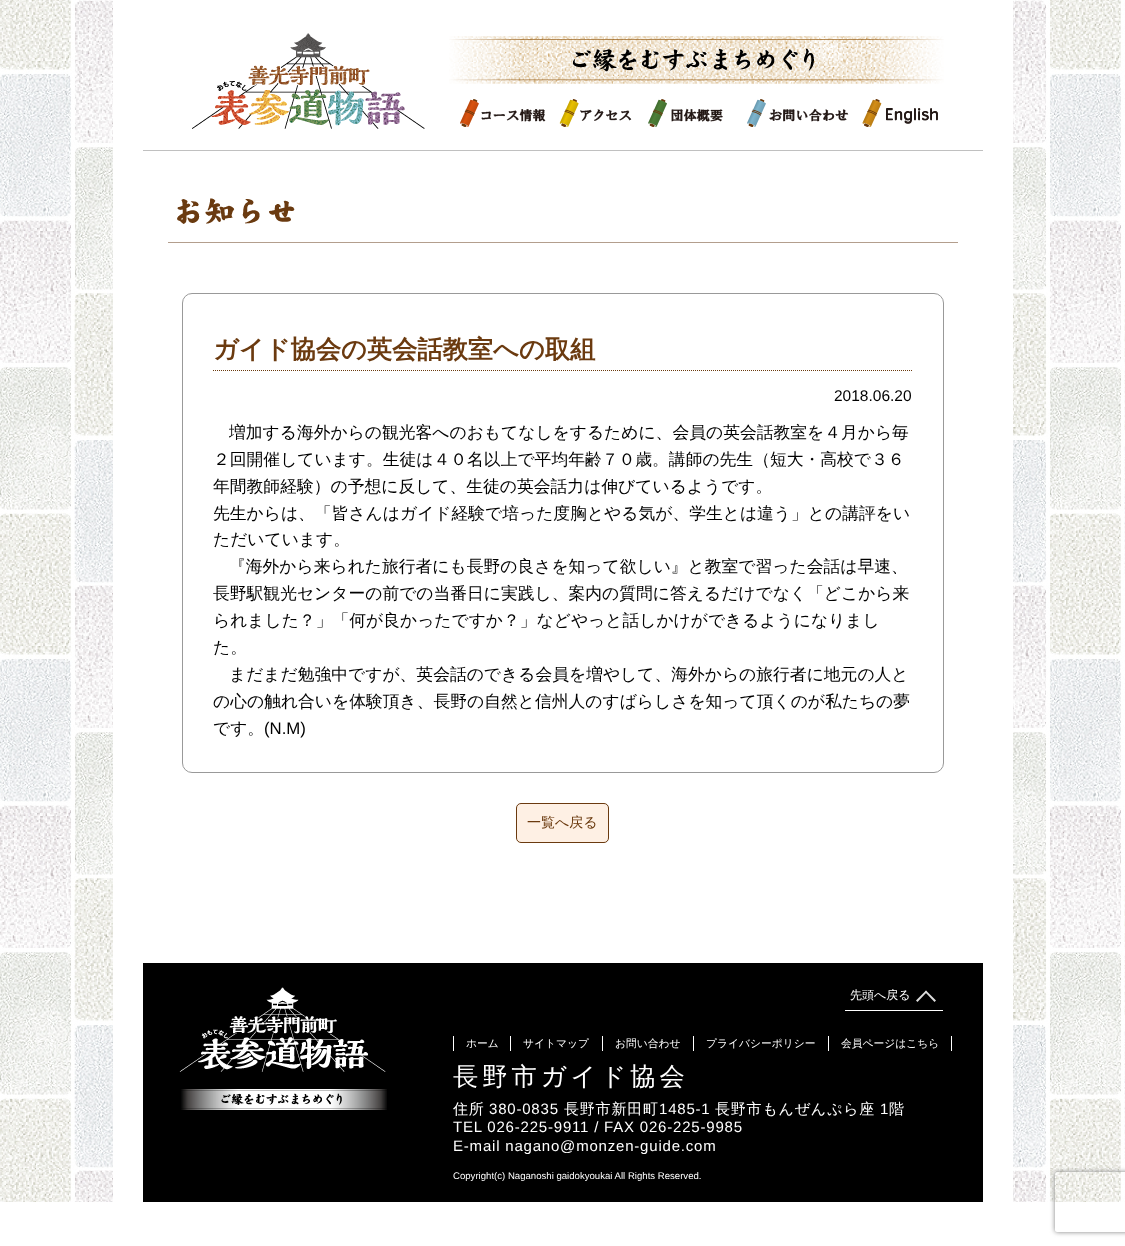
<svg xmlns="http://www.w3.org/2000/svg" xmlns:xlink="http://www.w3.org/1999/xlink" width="1125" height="1246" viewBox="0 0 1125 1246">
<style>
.cls-1{font:bold 25.25px WenQuanYi Zen Hei;fill:#6b3a0f}
.cls-2{font:15.5px Liberation Sans;fill:#000000}
.cls-3{font:500 16.8px WenQuanYi Zen Hei;fill:#000000}
.cls-4{font:16.8px Liberation Sans;fill:#000000}
.cls-5{font:500 14px WenQuanYi Zen Hei;fill:#6b3a0f}
.cls-6{font:500 12px WenQuanYi Zen Hei;fill:#ffffff}
.cls-7{font:500 10.75px WenQuanYi Zen Hei;fill:#ffffff}
.cls-8{font:500 25.25px WenQuanYi Zen Hei;letter-spacing:4px;fill:#ffffff}
.cls-9{font:500 15px WenQuanYi Zen Hei;letter-spacing:0.8px;fill:#ffffff}
.cls-10{font:15px Liberation Sans;letter-spacing:0.8px;fill:#ffffff}
.cls-11{font:9.6px Liberation Sans;fill:#ffffff}
</style>
<defs>
<clipPath id="clip1"><path d="M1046 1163H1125V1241H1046ZM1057 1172H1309C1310 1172 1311 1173 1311 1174V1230C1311 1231 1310 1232 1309 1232H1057C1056 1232 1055 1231 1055 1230V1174C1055 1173 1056 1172 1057 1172Z" clip-rule="evenodd"/></clipPath>
</defs>
<rect width="100%" height="100%" fill="#ffffff"/>
<image xlink:href="image0.png" x="0" y="0" width="1125" height="1202"/>
<rect fill="#ffffff" x="113" y="0" width="900" height="1202"/>
<rect fill="#c0c0c0" x="143" y="150" width="840" height="1"/>
<image xlink:href="image1.png" x="192" y="33" width="233" height="96"/>
<image xlink:href="image2.png" x="449" y="36" width="495" height="48"/>
<image xlink:href="image3.png" x="460" y="99" width="86" height="28"/>
<image xlink:href="image4.png" x="559" y="99" width="73" height="28"/>
<image xlink:href="image5.png" x="648" y="99" width="75" height="28"/>
<image xlink:href="image6.png" x="747" y="99" width="102" height="28"/>
<image xlink:href="image7.png" x="862" y="99" width="76" height="28"/>
<rect fill="#b39e8d" x="168" y="242" width="790" height="1"/>
<image xlink:href="image8.png" x="177" y="198" width="118" height="26"/>
<rect fill="none" stroke="#999999" x="182.5" y="293.5" width="761" height="479" rx="9.5"/>
<path fill="none" stroke="#6b3a0f" stroke-dasharray="1 1" d="M213 370.5H913"/>
<rect fill="#fef0e4" stroke="#6b3a0f" x="516.5" y="803.5" width="92" height="39" rx="4.5"/>
<rect fill="#000000" x="143" y="963" width="840" height="239"/>
<image xlink:href="image9.png" x="179" y="987" width="208" height="123"/>
<rect fill="#ffffff" x="845" y="1010" width="98" height="1"/>
<path fill="#dddddd" d="M916 1000.5L926 990.5L927 992L917.5 1002Z"/>
<path fill="#dddddd" d="M934.5 1002L925 992L926 990.5L936 1000.5Z"/>
<rect fill="#ffffff" x="453" y="1036" width="1" height="15"/>
<rect fill="#ffffff" x="510" y="1036" width="1" height="15"/>
<rect fill="#ffffff" x="602" y="1036" width="1" height="15"/>
<rect fill="#ffffff" x="693" y="1036" width="1" height="15"/>
<rect fill="#ffffff" x="951" y="1036" width="1" height="15"/>
<rect fill="#ffffff" x="828" y="1036" width="1" height="15"/>
<g clip-path="url(#clip1)">
<rect fill="#808080" filter="blur(2.5px)" x="1055" y="1172" width="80" height="60" rx="2"/>
</g>
<text class="cls-1" x="213" y="358">ガイド協会の英会話教室への取組</text>
<text class="cls-2" x="834" y="401">2018.06.20</text>
<text class="cls-3" x="229" y="438">増加する海外からの観光客へのおもてなしをするために、会員の英会話教室を４月から毎</text>
<text class="cls-3"><tspan x="213" y="465">２回開催しています。生徒は４０名以上で平均年齢７０歳。講師の先生（短大・高校で３６</tspan><tspan x="213" y="492">年間教師経験）の予想に反して、生徒の英会話力は伸びているようです。</tspan><tspan x="213" y="519">先生からは、「皆さんはガイド経験で培った度胸とやる気が、学生とは違う」との講評をい</tspan><tspan x="213" y="545">ただいています。</tspan></text>
<text class="cls-3" x="229" y="572">『海外から来られた旅行者にも長野の良さを知って欲しい』と教室で習った会話は早速、</text>
<text class="cls-3"><tspan x="213" y="599">長野駅観光センターの前での当番日に実践し、案内の質問に答えるだけでなく「どこから来</tspan><tspan x="213" y="626">られました？」「何が良かったですか？」などやっと話しかけができるようになりまし</tspan><tspan x="213" y="653">た。</tspan></text>
<text class="cls-3" x="229" y="680">まだまだ勉強中ですが、英会話のできる会員を増やして、海外からの旅行者に地元の人と</text>
<text class="cls-3"><tspan x="213" y="707">の心の触れ合いを体験頂き、長野の自然と信州人のすばらしさを知って頂くのが私たちの夢</tspan><tspan x="213" y="734">です。</tspan></text>
<text class="cls-4" x="264" y="734">(N.M)</text>
<text class="cls-5" x="527" y="827">一覧へ戻る</text>
<text class="cls-6" x="850" y="999">先頭へ戻る</text>
<text class="cls-7" x="466" y="1047">ホーム</text>
<text class="cls-7" x="523" y="1047">サイトマップ</text>
<text class="cls-7" x="615" y="1047">お問い合わせ</text>
<text class="cls-7" x="706" y="1047">プライバシーポリシー</text>
<text class="cls-7" x="841" y="1047">会員ページはこちら</text>
<text class="cls-8" x="453" y="1085">長野市ガイド協会</text>
<text class="cls-9" x="453" y="1114">住所</text>
<text class="cls-10" x="489" y="1114">380-0835</text>
<text class="cls-9" x="564" y="1114">長野市新田町</text>
<text class="cls-10" x="659" y="1114">1485-1</text>
<text class="cls-9" x="715" y="1114">長野市もんぜんぷら座</text>
<text class="cls-10" x="880" y="1114">1</text>
<text class="cls-9" x="889" y="1114">階</text>
<text class="cls-10"><tspan x="453" y="1132">TEL 026-225-9911 / FAX 026-225-9985</tspan><tspan x="453" y="1151">E-mail nagano@monzen-guide.com</tspan></text>
<text class="cls-11" x="453" y="1179">Copyright(c) Naganoshi gaidokyoukai All Rights Reserved.</text>
</svg>
